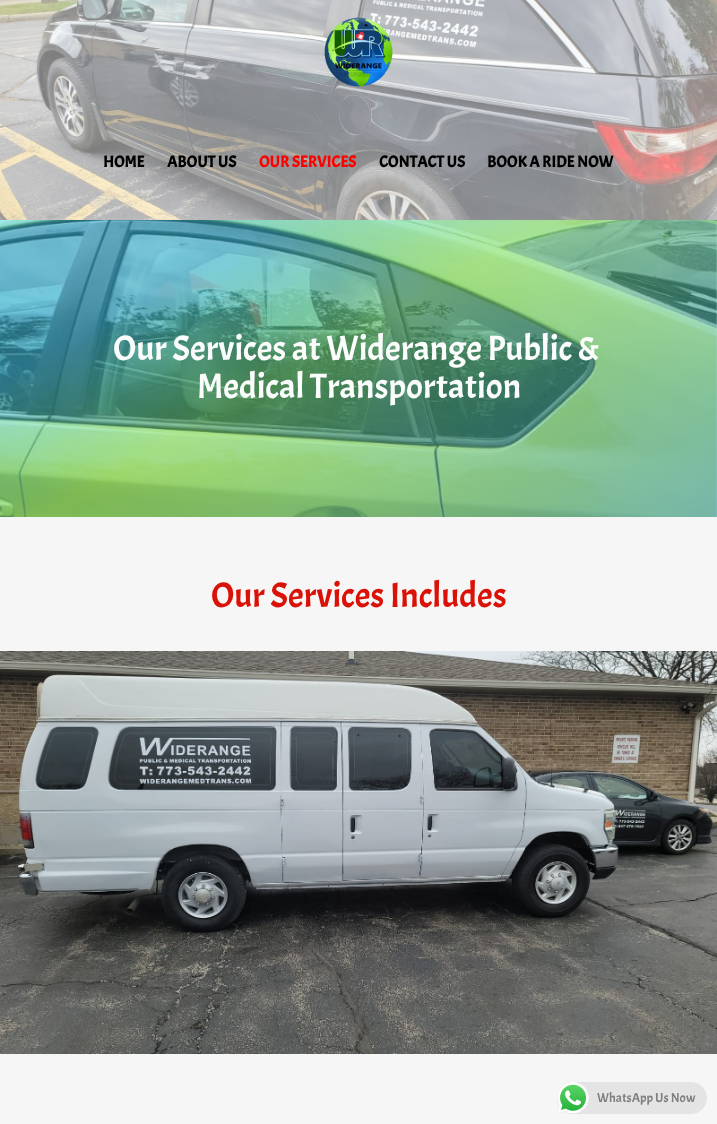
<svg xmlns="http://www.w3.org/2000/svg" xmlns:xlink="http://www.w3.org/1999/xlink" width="717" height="1124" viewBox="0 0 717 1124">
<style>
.cls-1{font:bold 16px Acme;fill:#000000}
.cls-2{font:bold 16px Acme;fill:#ff0000}
.cls-3{font:35.25px Acme;fill:#fbfdfc}
.cls-4{font:35.25px Acme;fill:#da1106}
.cls-5{font:13px Acme;fill:#7f7d7d}
</style>
<defs>
<linearGradient id="g1" gradientUnits="userSpaceOnUse" x1="205" y1="102" x2="512" y2="635"><stop offset="0.23" stop-color="#44d3f6" stop-opacity="0.5"/><stop offset="0.45" stop-color="#72e584" stop-opacity="0.5"/><stop offset="1" stop-color="#2ca4eb" stop-opacity="0.5"/></linearGradient>
</defs>
<rect width="100%" height="100%" fill="#ffffff"/>
<image xlink:href="image0.png" x="0" y="0" width="717" height="220"/>
<image xlink:href="image1.png" x="324" y="17" width="69" height="70"/>
<image xlink:href="image2.png" x="0" y="220" width="717" height="297"/>
<rect fill="url(#g1)" x="0" y="220" width="717" height="297"/>
<rect fill="#f6f6f6" x="0" y="517" width="717" height="607"/>
<image xlink:href="image3.png" x="0" y="651" width="717" height="403"/>
<rect fill="#e4e4e4" x="557" y="1082" width="150" height="32" rx="16"/>
<image xlink:href="image4.png" x="557" y="1082" width="32" height="32"/>
<text class="cls-1" x="103" y="167">HOME</text>
<text class="cls-1" x="167" y="167">ABOUT US</text>
<text class="cls-2" x="259" y="167">OUR SERVICES</text>
<text class="cls-1" x="379" y="167">CONTACT US</text>
<text class="cls-1" x="487" y="167">BOOK A RIDE NOW</text>
<text class="cls-3" x="113" y="360">Our Services at Widerange Public &amp;</text>
<text class="cls-3" x="197" y="398">Medical Transportation</text>
<text class="cls-4" x="211" y="607">Our Services Includes</text>
<text class="cls-5" x="597" y="1102">WhatsApp Us Now</text>
</svg>
